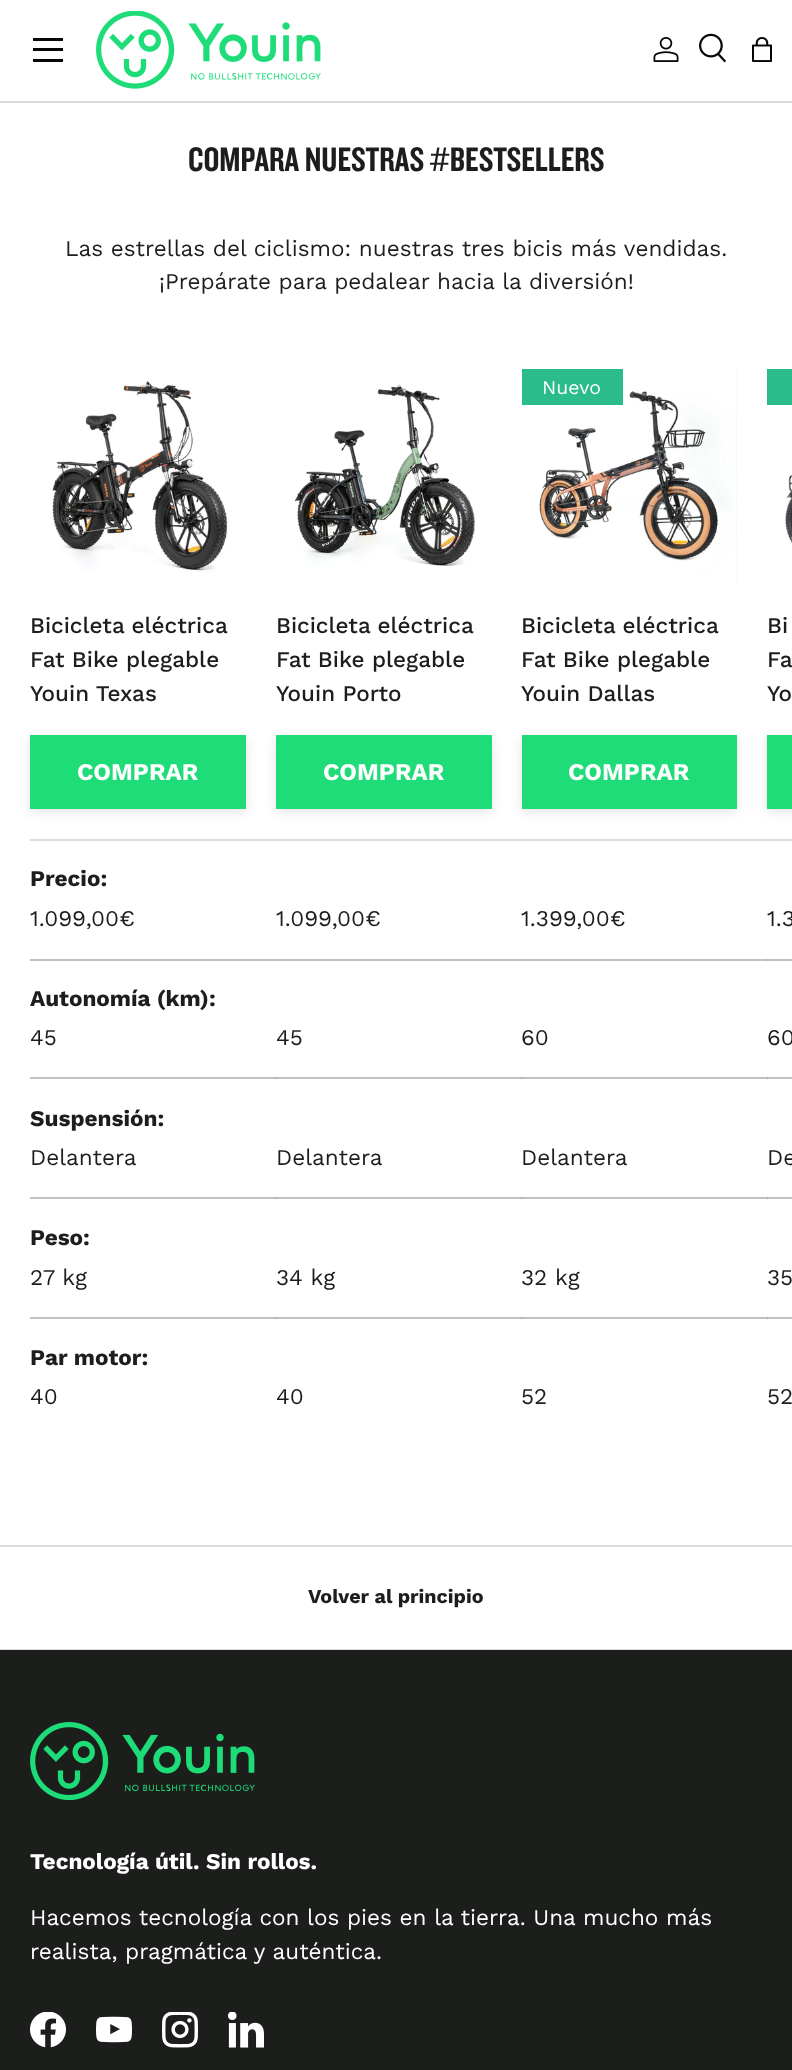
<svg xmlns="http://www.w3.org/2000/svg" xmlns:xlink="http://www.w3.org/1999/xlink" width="792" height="2070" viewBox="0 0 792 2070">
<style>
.cls-1{font:500 35.4px 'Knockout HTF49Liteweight';fill:#1c1e1c}
.cls-2{font:22.5px Work Sans;fill:#1c1e1c}
.cls-3{font:500 22.5px Work Sans;fill:#1c1e1c}
.cls-4{font:bold 24px Work Sans;fill:#ffffff}
.cls-5{font:19.5px Work Sans;fill:#ffffff}
.cls-6{font:bold 22.5px Work Sans;fill:#1c1e1c}
.cls-7{font:bold 19.75px Work Sans;fill:#1c1e1c}
.cls-8{font:bold 22.5px Work Sans;fill:#ffffff}
.cls-9{font:22.5px Work Sans;fill:#ffffff}
</style>
<defs>
<linearGradient id="g1" gradientUnits="userSpaceOnUse" x1="-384" y1="695" x2="234" y2="849"><stop offset="0.6" stop-color="#4de394"/><stop offset="0.6" stop-color="#1edc78"/><stop offset="1" stop-color="#1edc78"/></linearGradient>
<linearGradient id="g2" gradientUnits="userSpaceOnUse" x1="-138" y1="695" x2="480" y2="849"><stop offset="0.6" stop-color="#4de394"/><stop offset="0.6" stop-color="#1edc78"/><stop offset="1" stop-color="#1edc78"/></linearGradient>
<linearGradient id="g3" gradientUnits="userSpaceOnUse" x1="111" y1="695" x2="725" y2="848"><stop offset="0.6" stop-color="#4de394"/><stop offset="0.6" stop-color="#1edc78"/><stop offset="1" stop-color="#1edc78"/></linearGradient>
<linearGradient id="g4" gradientUnits="userSpaceOnUse" x1="352" y1="695" x2="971" y2="849"><stop offset="0.6" stop-color="#4de394"/><stop offset="0.6" stop-color="#1edc78"/><stop offset="1" stop-color="#1edc78"/></linearGradient>
</defs>
<rect width="100%" height="100%" fill="#ffffff"/>
<rect fill="#dddddd" x="0" y="1649" width="792" height="1"/>
<rect fill="#dadada" x="0" y="101" width="792" height="2"/>
<rect fill="#070707" x="33" y="38" width="30" height="3"/>
<rect fill="#070707" x="33" y="59" width="30" height="3"/>
<rect fill="#070707" x="33" y="48" width="30" height="3"/>
<image xlink:href="image0.png" x="96" y="11" width="225" height="78"/>
<image xlink:href="image1.png" x="653" y="37" width="26" height="25"/>
<image xlink:href="image2.png" x="699" y="33" width="27" height="30"/>
<image xlink:href="image3.png" x="752" y="37" width="20" height="25"/>
<image xlink:href="image4.png" x="30" y="369" width="216" height="216"/>
<rect fill="#000000" fill-opacity="0.1" filter="blur(6px)" x="30" y="738" width="216" height="74"/>
<rect fill="url(#g1)" x="32" y="737" width="212" height="70"/>
<rect fill="none" stroke="#1edc78" stroke-width="2" x="31" y="736" width="214" height="72"/>
<image xlink:href="image5.png" x="276" y="369" width="216" height="216"/>
<rect fill="#000000" fill-opacity="0.1" filter="blur(6px)" x="276" y="738" width="216" height="74"/>
<rect fill="url(#g2)" x="278" y="737" width="212" height="70"/>
<rect fill="none" stroke="#1edc78" stroke-width="2" x="277" y="736" width="214" height="72"/>
<rect fill="#f4f4f4" x="736" y="369" width="1" height="216"/>
<image xlink:href="image6.png" x="522" y="369" width="215" height="216"/>
<rect fill="#2bbc8b" x="522" y="369" width="101" height="36"/>
<rect fill="#000000" fill-opacity="0.1" filter="blur(6px)" x="522" y="738" width="215" height="74"/>
<rect fill="url(#g3)" x="524" y="737" width="211" height="70"/>
<rect fill="none" stroke="#1edc78" stroke-width="2" x="523" y="736" width="213" height="72"/>
<rect fill="#2bbc8b" x="767" y="369" width="25" height="36"/>
<image xlink:href="image7.png" x="767" y="405" width="25" height="180"/>
<rect fill="#000000" fill-opacity="0.1" filter="blur(6px)" x="767" y="738" width="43" height="74"/>
<rect fill="url(#g4)" x="769" y="737" width="23" height="70"/>
<rect fill="none" stroke="#1edc78" stroke-width="2" x="768" y="736" width="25" height="72"/>
<rect fill="#dddddd" x="30" y="839" width="762" height="2"/>
<rect fill="#c0c0c0" x="30" y="959" width="762" height="2"/>
<rect fill="#a7a8a7" x="767" y="959" width="1" height="2"/>
<rect fill="#a7a8a7" x="275" y="959" width="1" height="2"/>
<rect fill="#a7a8a7" x="521" y="959" width="1" height="2"/>
<rect fill="#c0c0c0" x="30" y="1077" width="762" height="2"/>
<rect fill="#a7a8a7" x="767" y="1077" width="1" height="2"/>
<rect fill="#a7a8a7" x="275" y="1077" width="1" height="2"/>
<rect fill="#a7a8a7" x="521" y="1077" width="1" height="2"/>
<rect fill="#c0c0c0" x="30" y="1197" width="762" height="2"/>
<rect fill="#a7a8a7" x="767" y="1197" width="1" height="2"/>
<rect fill="#a7a8a7" x="275" y="1197" width="1" height="2"/>
<rect fill="#a7a8a7" x="521" y="1197" width="1" height="2"/>
<rect fill="#c0c0c0" x="30" y="1317" width="762" height="2"/>
<rect fill="#a7a8a7" x="767" y="1317" width="1" height="2"/>
<rect fill="#a7a8a7" x="275" y="1317" width="1" height="2"/>
<rect fill="#a7a8a7" x="521" y="1317" width="1" height="2"/>
<rect fill="#dddddd" x="0" y="1545" width="792" height="2"/>
<rect fill="#1c1e1c" x="0" y="1650" width="792" height="420"/>
<image xlink:href="image8.png" x="30" y="1722" width="225" height="78"/>
<image xlink:href="image9.png" x="30" y="2012" width="36" height="36"/>
<image xlink:href="image10.png" x="96" y="2016" width="36" height="27"/>
<image xlink:href="image11.png" x="162" y="2012" width="36" height="36"/>
<image xlink:href="image12.png" x="228" y="2012" width="36" height="36"/>
<text class="cls-1" x="188" y="171">COMPARA NUESTRAS #BESTSELLERS</text>
<text class="cls-2" x="65" y="256">Las estrellas del ciclismo: nuestras tres bicis más vendidas.</text>
<text class="cls-2" x="159" y="289">¡Prepárate para pedalear hacia la diversión!</text>
<text class="cls-3"><tspan x="30" y="633">Bicicleta eléctrica</tspan><tspan x="30" y="667">Fat Bike plegable</tspan><tspan x="30" y="701">Youin Texas</tspan></text>
<text class="cls-4" x="77" y="780">COMPRAR</text>
<text class="cls-3"><tspan x="276" y="633">Bicicleta eléctrica</tspan><tspan x="276" y="667">Fat Bike plegable</tspan><tspan x="276" y="701">Youin Porto</tspan></text>
<text class="cls-4" x="323" y="780">COMPRAR</text>
<text class="cls-5" x="542" y="394">Nuevo</text>
<text class="cls-3"><tspan x="521" y="633">Bicicleta eléctrica</tspan><tspan x="521" y="667">Fat Bike plegable</tspan><tspan x="521" y="701">Youin Dallas</tspan></text>
<text class="cls-4" x="568" y="780">COMPRAR</text>
<text class="cls-3"><tspan x="767" y="633">Bi</tspan><tspan x="767" y="667">Fa</tspan><tspan x="767" y="701">Yo</tspan></text>
<text class="cls-6" x="30" y="886">Precio:</text>
<text class="cls-2" x="30" y="926">1.099,00€</text>
<text class="cls-2" x="276" y="926">1.099,00€</text>
<text class="cls-2" x="521" y="926">1.399,00€</text>
<text class="cls-2" x="767" y="926">1.3</text>
<text class="cls-6" x="30" y="1006">Autonomía (km):</text>
<text class="cls-2" x="30" y="1045">45</text>
<text class="cls-2" x="276" y="1045">45</text>
<text class="cls-2" x="521" y="1045">60</text>
<text class="cls-2" x="767" y="1045">60</text>
<text class="cls-6" x="30" y="1126">Suspensión:</text>
<text class="cls-2" x="30" y="1165">Delantera</text>
<text class="cls-2" x="276" y="1165">Delantera</text>
<text class="cls-2" x="521" y="1165">Delantera</text>
<text class="cls-2" x="767" y="1165">De</text>
<text class="cls-6" x="30" y="1245">Peso:</text>
<text class="cls-2" x="30" y="1285">27 kg</text>
<text class="cls-2" x="276" y="1285">34 kg</text>
<text class="cls-2" x="521" y="1285">32 kg</text>
<text class="cls-2" x="767" y="1285">35</text>
<text class="cls-6" x="30" y="1365">Par motor:</text>
<text class="cls-2" x="30" y="1404">40</text>
<text class="cls-2" x="276" y="1404">40</text>
<text class="cls-2" x="521" y="1404">52</text>
<text class="cls-2" x="767" y="1404">52</text>
<text class="cls-7" x="308" y="1603">Volver al principio</text>
<text class="cls-8" x="30" y="1869">Tecnología útil. Sin rollos.</text>
<text class="cls-9"><tspan x="30" y="1925">Hacemos tecnología con los pies en la tierra. Una mucho más</tspan><tspan x="30" y="1959">realista, pragmática y auténtica.</tspan></text>
</svg>
